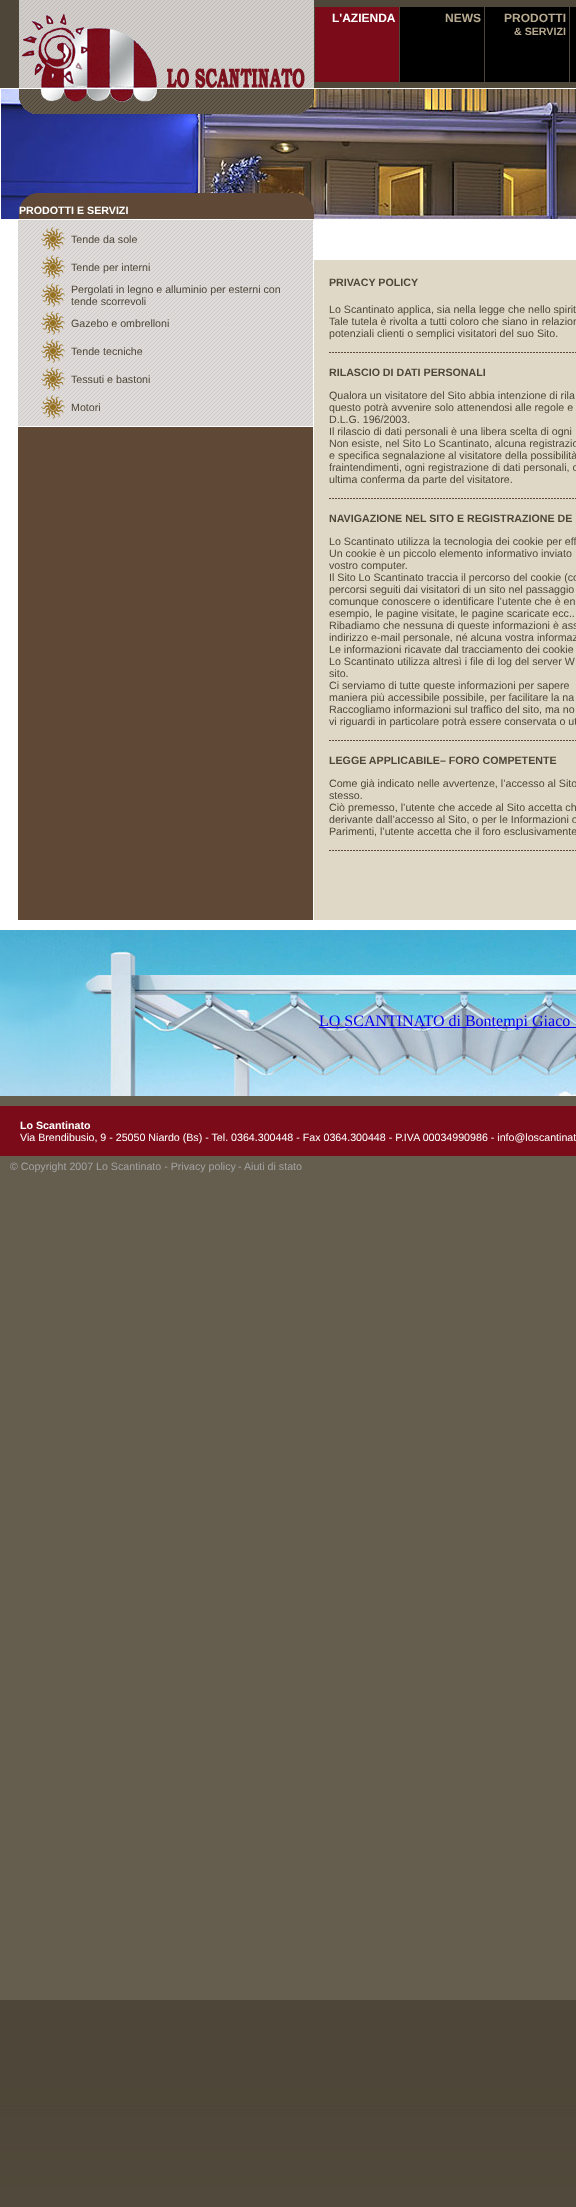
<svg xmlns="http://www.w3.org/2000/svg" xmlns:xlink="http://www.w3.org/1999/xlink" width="576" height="2207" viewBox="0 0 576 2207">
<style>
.cls-1{font:bold 12px Liberation Sans;fill:#ffffff}
.cls-2{font:bold 12px Liberation Sans;fill:#b8aa90}
.cls-3{font:bold 10.67px Liberation Sans;fill:#b8aa90}
.cls-4{font:bold 10.67px Liberation Sans;fill:#ffffff}
.cls-5{font:10.67px Liberation Sans;fill:#4e4638}
.cls-6{font:bold 10.67px Liberation Sans;fill:#4e4638}
.cls-7{font:16px Liberation Serif;fill:#0000ee}
.cls-8{font:10.67px Liberation Sans;fill:#ffffff}
.cls-9{font:10.67px Liberation Sans;fill:#a3a3a3}
</style>
<rect width="100%" height="100%" fill="#ffffff"/>
<image xlink:href="image0.png" x="0" y="0" width="576" height="2207"/>
<image xlink:href="image1.png" x="19" y="0" width="295" height="88"/>
<rect fill="#7b0b19" x="315" y="7" width="84" height="75"/>
<rect fill="#000000" x="400" y="7" width="84" height="75"/>
<rect fill="#000000" x="485" y="7" width="84" height="75"/>
<rect fill="#000000" x="570" y="7" width="6" height="75"/>
<rect fill="#ffffff" x="0" y="88" width="576" height="1"/>
<rect fill="#ffffff" x="0" y="89" width="1" height="130"/>
<image xlink:href="image2.png" x="1" y="89" width="18" height="130"/>
<image xlink:href="image3.png" x="19" y="99" width="295" height="15"/>
<image xlink:href="image4.png" x="19" y="89" width="295" height="25"/>
<image xlink:href="image5.png" x="314" y="89" width="262" height="130"/>
<image xlink:href="image6.png" x="19" y="114" width="295" height="101"/>
<image xlink:href="image7.png" x="19" y="193" width="295" height="26"/>
<rect fill="#ffffff" x="0" y="219" width="576" height="711"/>
<rect fill="#5f4936" x="18" y="427" width="295" height="493"/>
<image xlink:href="image8.png" x="18" y="220" width="295" height="206"/>
<image xlink:href="image9.png" x="41" y="227" width="24" height="24"/>
<image xlink:href="image9.png" x="41" y="255" width="24" height="24"/>
<image xlink:href="image9.png" x="41" y="283" width="24" height="24"/>
<image xlink:href="image10.png" x="41" y="311" width="24" height="24"/>
<image xlink:href="image9.png" x="41" y="339" width="24" height="24"/>
<image xlink:href="image9.png" x="41" y="367" width="24" height="24"/>
<image xlink:href="image9.png" x="41" y="395" width="24" height="24"/>
<rect fill="#e0d8c7" x="314" y="260" width="262" height="660"/>
<image xlink:href="image11.png" x="329" y="352" width="247" height="1"/>
<image xlink:href="image11.png" x="329" y="498" width="247" height="1"/>
<image xlink:href="image11.png" x="329" y="740" width="247" height="1"/>
<image xlink:href="image11.png" x="329" y="850" width="247" height="1"/>
<image xlink:href="image12.png" x="0" y="930" width="576" height="166"/>
<rect fill="#0000ee" x="319" y="1027" width="257" height="1"/>
<rect fill="#7b0b19" x="0" y="1106" width="576" height="50"/>
<text class="cls-1" x="332" y="22">L'AZIENDA</text>
<text class="cls-2" x="445" y="22">NEWS</text>
<text class="cls-2" x="504" y="22">PRODOTTI</text>
<text class="cls-3" x="514" y="35">&amp; SERVIZI</text>
<text class="cls-4" x="19" y="214">PRODOTTI E SERVIZI</text>
<text class="cls-5" x="71" y="243">Tende da sole</text>
<text class="cls-5" x="71" y="271">Tende per interni</text>
<text class="cls-5"><tspan x="71" y="293">Pergolati in legno e alluminio per esterni con</tspan><tspan x="71" y="305">tende scorrevoli</tspan></text>
<text class="cls-5" x="71" y="327">Gazebo e ombrelloni</text>
<text class="cls-5" x="71" y="355">Tende tecniche</text>
<text class="cls-5" x="71" y="383">Tessuti e bastoni</text>
<text class="cls-5" x="71" y="411">Motori</text>
<text class="cls-6" x="329" y="286">PRIVACY POLICY</text>
<text class="cls-5"><tspan x="329" y="313">Lo Scantinato applica, sia nella legge che nello spirit</tspan><tspan x="329" y="325">Tale tutela è rivolta a tutti coloro che siano in relazion</tspan><tspan x="329" y="337">potenziali clienti o semplici visitatori del suo Sito.</tspan></text>
<text class="cls-6" x="329" y="376">RILASCIO DI DATI PERSONALI</text>
<text class="cls-5"><tspan x="329" y="399">Qualora un visitatore del Sito abbia intenzione di rila</tspan><tspan x="329" y="411">questo potrà avvenire solo attenendosi alle regole e</tspan><tspan x="329" y="423">D.L.G. 196/2003.</tspan><tspan x="329" y="435">Il rilascio di dati personali è una libera scelta di ogni</tspan><tspan x="329" y="447">Non esiste, nel Sito Lo Scantinato, alcuna registrazio</tspan><tspan x="329" y="459">e specifica segnalazione al visitatore della possibilità</tspan><tspan x="329" y="471">fraintendimenti, ogni registrazione di dati personali, c</tspan><tspan x="329" y="483">ultima conferma da parte del visitatore.</tspan></text>
<text class="cls-6" x="329" y="522">NAVIGAZIONE NEL SITO E REGISTRAZIONE DE</text>
<text class="cls-5"><tspan x="329" y="545">Lo Scantinato utilizza la tecnologia dei cookie per eff</tspan><tspan x="329" y="557">Un cookie è un piccolo elemento informativo inviato</tspan><tspan x="329" y="569">vostro computer.</tspan><tspan x="329" y="581">Il Sito Lo Scantinato traccia il percorso del cookie (co</tspan><tspan x="329" y="593">percorsi seguiti dai visitatori di un sito nel passaggio</tspan><tspan x="329" y="605">comunque conoscere o identificare l’utente che è en</tspan><tspan x="329" y="617">esempio, le pagine visitate, le pagine scaricate ecc..</tspan><tspan x="329" y="629">Ribadiamo che nessuna di queste informazioni è ass</tspan><tspan x="329" y="641">indirizzo e-mail personale, né alcuna vostra informaz</tspan><tspan x="329" y="653">Le informazioni ricavate dal tracciamento dei cookie</tspan><tspan x="329" y="665">Lo Scantinato utilizza altresì i file di log del server W</tspan><tspan x="329" y="677">sito.</tspan><tspan x="329" y="689">Ci serviamo di tutte queste informazioni per sapere</tspan><tspan x="329" y="701">maniera più accessibile possibile, per facilitare la na</tspan><tspan x="329" y="713">Raccogliamo informazioni sul traffico del sito, ma no</tspan><tspan x="329" y="725">vi riguardi in particolare potrà essere conservata o ut</tspan></text>
<text class="cls-6" x="329" y="764">LEGGE APPLICABILE– FORO COMPETENTE</text>
<text class="cls-5"><tspan x="329" y="787">Come già indicato nelle avvertenze, l’accesso al Sito</tspan><tspan x="329" y="799">stesso.</tspan><tspan x="329" y="811">Ciò premesso, l’utente che accede al Sito accetta ch</tspan><tspan x="329" y="823">derivante dall’accesso al Sito, o per le Informazioni o</tspan><tspan x="329" y="835">Parimenti, l’utente accetta che il foro esclusivamente</tspan></text>
<text class="cls-7" x="319" y="1026">LO SCANTINATO di Bontempi Giaco</text>
<text class="cls-4" x="20" y="1129">Lo Scantinato</text>
<text class="cls-8" x="20" y="1141">Via Brendibusio, 9 - 25050 Niardo (Bs) - Tel. 0364.300448 - Fax 0364.300448 - P.IVA 00034990986 - info@loscantinat</text>
<text class="cls-9" x="10" y="1170">© Copyright 2007 Lo Scantinato - Privacy policy</text>
<text class="cls-9" x="238" y="1170">- Aiuti di stato</text>
</svg>
